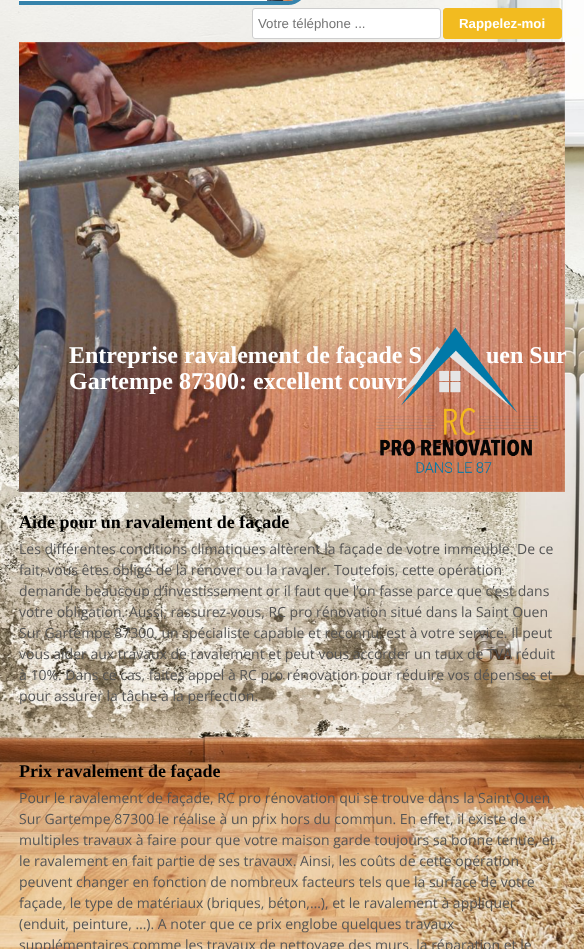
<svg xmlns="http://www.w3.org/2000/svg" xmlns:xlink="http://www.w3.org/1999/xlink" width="584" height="949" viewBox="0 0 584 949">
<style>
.cls-1{font:13.25px Liberation Sans;fill:#757575}
.cls-2{font:bold 13.25px Liberation Sans;fill:#ffffff}
.cls-3{font:bold 24px Liberation Serif;fill:#ffffff}
.cls-4{font:bold 18px Liberation Serif;fill:#000000}
.cls-5{font:14px Open Sans;fill:#555555}
</style>
<rect width="100%" height="100%" fill="#ffffff"/>
<image xlink:href="image0.png" x="0" y="0" width="584" height="949"/>
<path fill="#ffffff" d="M19-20H288C299-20 308-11 308 0V-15C308-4 299 5 288 5H19Z"/>
<path fill="#3683ab" fill-rule="evenodd" d="M19-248H288C299-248 308-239 308-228V-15C308-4 299 5 288 5H19ZM19-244H288C297-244 304-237 304-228V-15C304-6 297 1 288 1H19Z"/>
<image xlink:href="image1.png" x="267" y="0" width="26" height="1"/>
<rect fill="#ffffff" stroke="#cecece" x="252.5" y="8.5" width="188" height="30" rx="2.5"/>
<rect fill="#f2bb20" stroke="#f2bb20" x="443.5" y="8.5" width="118" height="30" rx="2.5"/>
<image xlink:href="image2.png" x="19" y="42" width="546" height="450"/>
<text class="cls-1" x="258" y="28">Votre téléphone ...</text>
<text class="cls-2" x="459" y="28">Rappelez-moi</text>
<text class="cls-3" x="69" y="363">Entreprise ravalement de façade S</text>
<text class="cls-3" x="486" y="363">uen Sur</text>
<text class="cls-3" x="69" y="389">Gartempe 87300: excellent couvr</text>
<image xlink:href="image3.png" x="376" y="327" width="162" height="147"/>
<text class="cls-4" x="19" y="528">Aide pour un ravalement de façade</text>
<text class="cls-5"><tspan x="19" y="554">Les différentes conditions climatiques altèrent la façade de votre immeuble. De ce</tspan><tspan x="19" y="575">fait, vous êtes obligé de la rénover ou la ravaler. Toutefois, cette opération</tspan><tspan x="19" y="596">demande beaucoup d’investissement or il faut que l’on fasse parce que c’est dans</tspan><tspan x="19" y="617">votre obligation. Aussi, rassurez-vous, RC pro rénovation situé dans la Saint Ouen</tspan><tspan x="19" y="638">Sur Gartempe 87300, un spécialiste capable et reconnu, est à votre service. Il peut</tspan><tspan x="19" y="659">vous aider aux travaux de ravalement et peut vous accorder un taux de TVA réduit</tspan><tspan x="19" y="680">à 10%. Dans ce cas, faites appel à RC pro rénovation pour réduire vos dépenses et</tspan><tspan x="19" y="701">pour assurer la tâche à la perfection.</tspan></text>
<text class="cls-4" x="19" y="777">Prix ravalement de façade</text>
<text class="cls-5"><tspan x="19" y="803">Pour le ravalement de façade, RC pro rénovation qui se trouve dans la Saint Ouen</tspan><tspan x="19" y="824">Sur Gartempe 87300 le réalise à un prix hors du commun. En effet, il existe de</tspan><tspan x="19" y="845">multiples travaux à faire pour que votre maison garde toujours sa bonne tenue, et</tspan><tspan x="19" y="866">le ravalement en fait partie de ses travaux. Ainsi, les coûts de cette opération</tspan><tspan x="19" y="887">peuvent changer en fonction de nombreux facteurs tels que la surface de votre</tspan><tspan x="19" y="908">façade, le type de matériaux (briques, béton,…), et le ravalement à appliquer</tspan><tspan x="19" y="929">(enduit, peinture, …). A noter que ce prix englobe quelques travaux</tspan><tspan x="19" y="950">supplémentaires comme les travaux de nettoyage des murs, la réparation et le</tspan></text>
</svg>
